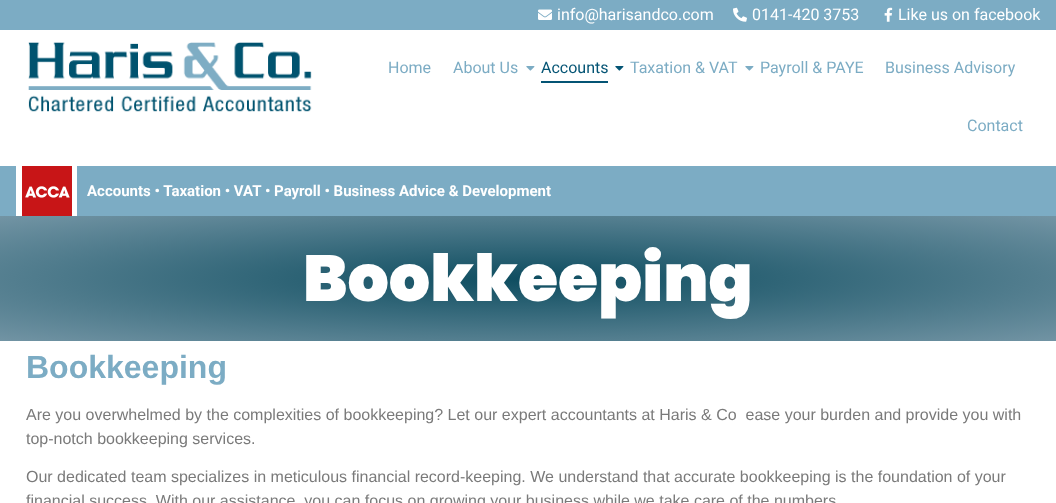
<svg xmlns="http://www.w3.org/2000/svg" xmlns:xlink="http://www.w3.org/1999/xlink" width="1056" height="503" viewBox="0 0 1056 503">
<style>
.cls-1{font:16px Roboto;fill:#ffffff}
.cls-2{font:16px Roboto;fill:#7cacc4}
.cls-3{font:16px Roboto;fill:#045474}
.cls-4{font:bold 15px Roboto;fill:#ffffff}
.cls-5{font:900 65px Poppins;fill:#ffffff}
.cls-6{font:bold 32px Liberation Sans;fill:#7cacc4}
.cls-7{font:16px Liberation Sans;fill:#7a7a7a}
</style>
<defs>
<radialGradient id="g1" gradientUnits="userSpaceOnUse" cx="0" cy="0" r="1" gradientTransform="matrix(747 0 0 88 528 279)"><stop offset="0" stop-color="#0e4d60"/><stop offset="1" stop-color="#7294a4"/></radialGradient>
</defs>
<rect width="100%" height="100%" fill="#ffffff"/>
<rect fill="#7cacc4" x="0" y="0" width="1056" height="30"/>
<image xlink:href="image0.png" x="538" y="9" width="14" height="11"/>
<image xlink:href="image1.png" x="733" y="7" width="14" height="15"/>
<image xlink:href="image2.png" x="884" y="7" width="9" height="15"/>
<image xlink:href="image3.png" x="28" y="42" width="284" height="70"/>
<image xlink:href="image4.png" x="526" y="66" width="9" height="5"/>
<image xlink:href="image5.png" x="615" y="66" width="9" height="5"/>
<rect fill="#045474" x="541" y="81" width="67" height="2"/>
<image xlink:href="image4.png" x="745" y="66" width="9" height="5"/>
<rect fill="#7cacc4" x="0" y="166" width="1056" height="50"/>
<rect fill="#ffffff" x="16" y="166" width="61" height="50"/>
<image xlink:href="image6.png" x="22" y="166" width="50" height="50"/>
<rect fill="url(#g1)" x="0" y="216" width="1056" height="125"/>
<text class="cls-1" x="557" y="20">info@harisandco.com</text>
<text class="cls-1" x="752" y="20">0141-420 3753</text>
<text class="cls-1" x="898" y="20">Like us on facebook</text>
<text class="cls-2" x="388" y="73">Home</text>
<text class="cls-2" x="453" y="73">About Us</text>
<text class="cls-3" x="541" y="73">Accounts</text>
<text class="cls-2" x="630" y="73">Taxation &amp; VAT</text>
<text class="cls-2" x="760" y="73">Payroll &amp; PAYE</text>
<text class="cls-2" x="885" y="73">Business Advisory</text>
<text class="cls-2" x="967" y="131">Contact</text>
<text class="cls-4" x="87" y="196">Accounts • Taxation • VAT • Payroll • Business Advice &amp; Development</text>
<text class="cls-5" x="303" y="301">Bookkeeping</text>
<text class="cls-6" x="26" y="378">Bookkeeping</text>
<text class="cls-7" xml:space="preserve"><tspan x="26" y="420">Are you overwhelmed by the complexities of bookkeeping? Let our expert accountants at Haris &amp; Co  ease your burden and provide you with</tspan><tspan x="26" y="444">top-notch bookkeeping services.</tspan></text>
<text class="cls-7"><tspan x="26" y="482">Our dedicated team specializes in meticulous financial record-keeping. We understand that accurate bookkeeping is the foundation of your</tspan><tspan x="26" y="506">financial success. With our assistance, you can focus on growing your business while we take care of the numbers</tspan></text>
</svg>
